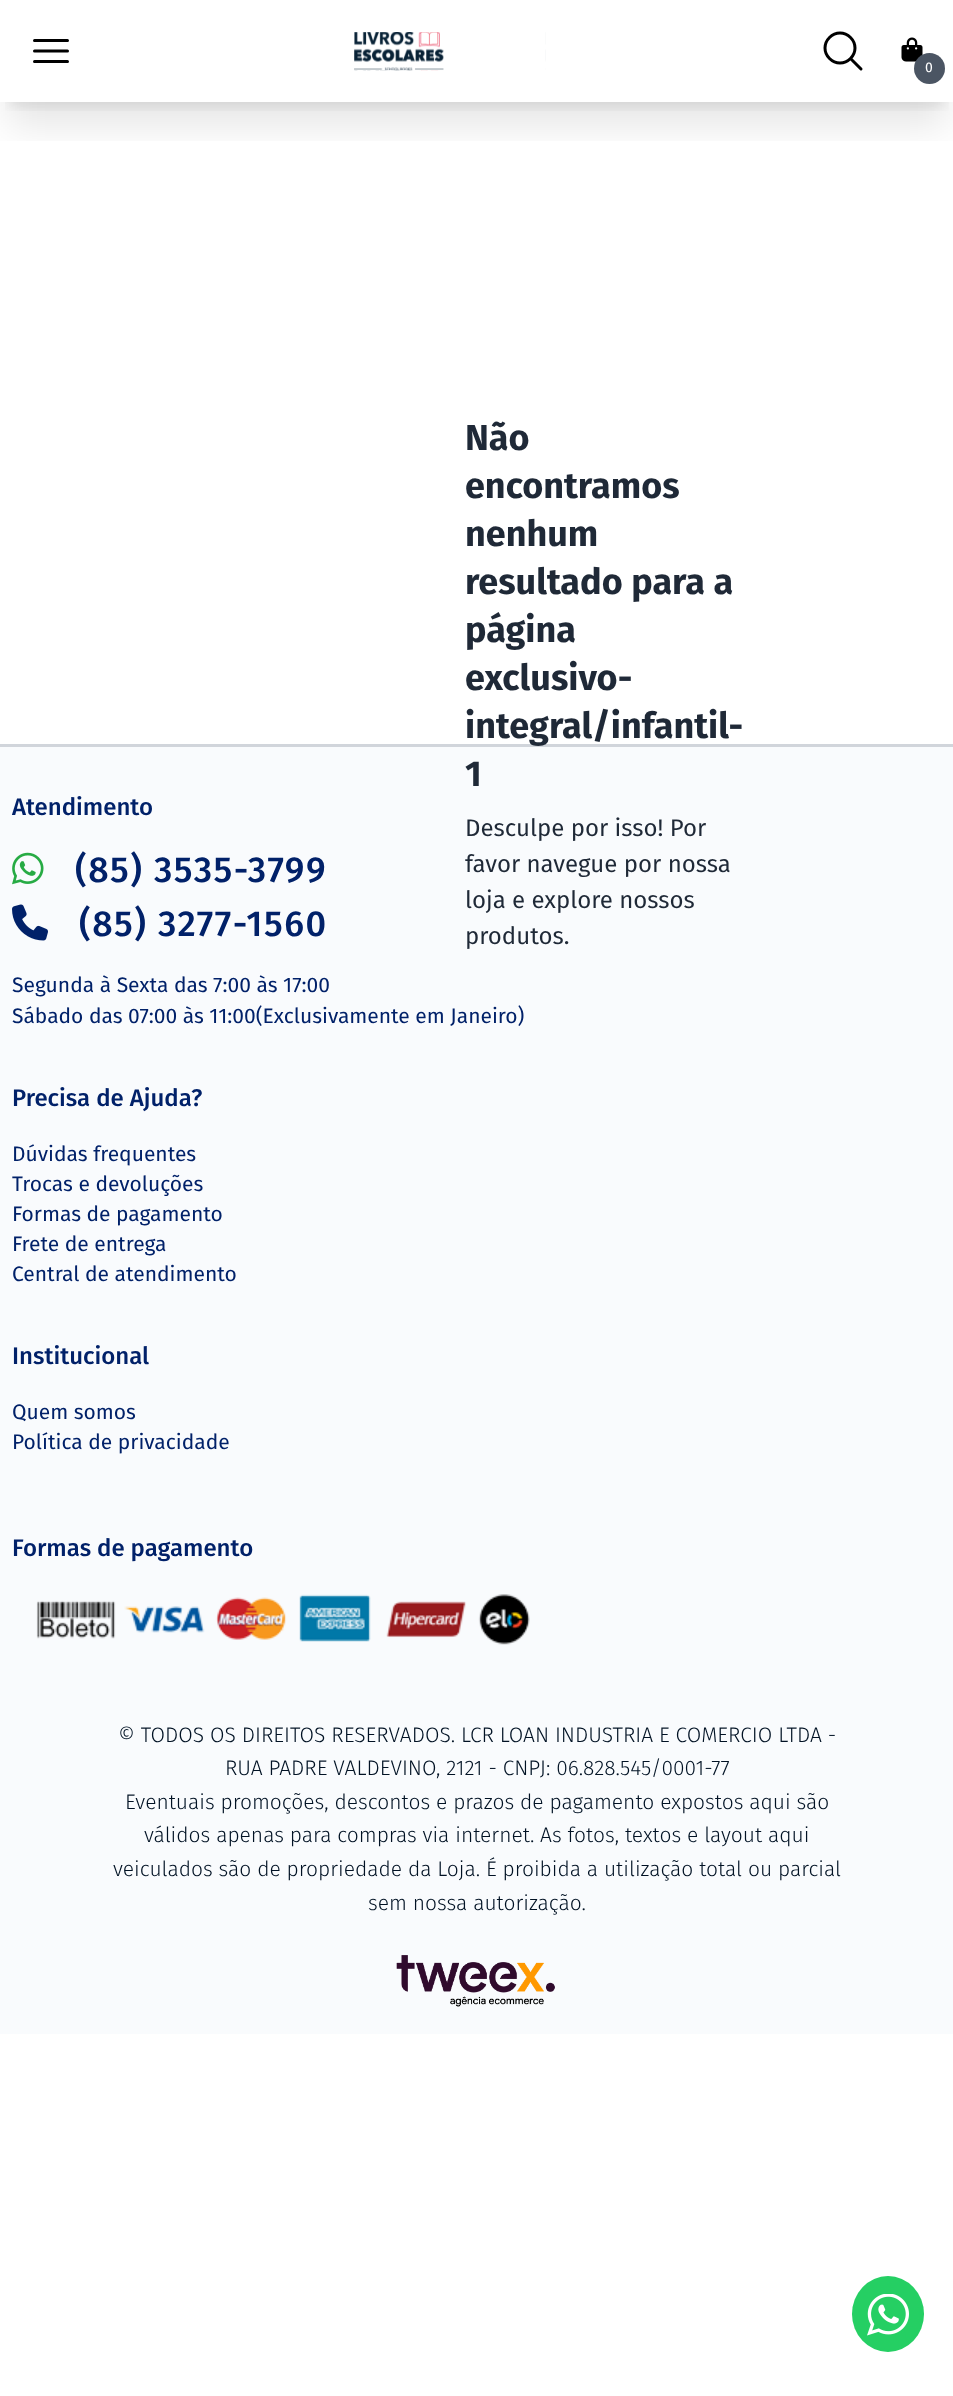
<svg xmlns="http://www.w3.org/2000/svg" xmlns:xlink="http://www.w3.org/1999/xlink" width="953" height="2396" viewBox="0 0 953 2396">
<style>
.cls-1{font:14px Fira Sans;fill:#ffffff}
.cls-2{font:bold 36px Fira Sans;fill:#1f2937}
.cls-3{font:24px Fira Sans;fill:#1f2937}
.cls-4{font:500 24px Fira Sans;fill:#012169}
.cls-5{font:500 36px Fira Sans;letter-spacing:1.5px;fill:#012169}
.cls-6{font:21px Fira Sans;fill:#012169}
.cls-7{font:300 21px Fira Sans;fill:#011224}
</style>
<defs>
<clipPath id="clip1"><rect x="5" y="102" width="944" height="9"/></clipPath>
<clipPath id="clip2"><rect x="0" y="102" width="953" height="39"/></clipPath>
</defs>
<rect width="100%" height="100%" fill="#ffffff"/>
<g clip-path="url(#clip1)">
<rect fill="#000000" fill-opacity="0.1" filter="blur(7.5px)" x="9" y="21" width="936" height="84"/>
</g>
<g clip-path="url(#clip2)">
<rect fill="#000000" fill-opacity="0.1" filter="blur(19px)" x="8" y="38" width="939" height="87"/>
</g>
<path fill="none" stroke="#000000" stroke-width="3" stroke-linecap="round" stroke-linejoin="round" d="M34.5 40.5H67.5M34.5 51H67.5M34.5 61.5H67.5"/>
<image xlink:href="image0.png" x="354" y="32" width="192" height="39"/>
<path fill="none" stroke="#000000" stroke-width="3" stroke-linecap="round" stroke-linejoin="round" d="M861 69L850.5 58.5M850.5 58.5C856.5 52.5 856.5 43.5 850.5 37.5C844.5 31.5 835.5 31.5 829.5 37.5C823.5 43.5 823.5 52.5 829.5 58.5C835.5 64.5 844.5 64.5 850.5 58.5Z"/>
<image xlink:href="image1.png" x="901" y="37" width="22" height="25"/>
<circle fill="#4b5563" cx="929.5" cy="68.5" r="15.5"/>
<rect fill="#f9fbfd" x="0" y="747" width="953" height="1287"/>
<rect fill="#d1d5db" x="0" y="744" width="953" height="3"/>
<image xlink:href="image2.png" x="12" y="852" width="32" height="33"/>
<image xlink:href="image3.png" x="12" y="904" width="36" height="37"/>
<image xlink:href="image4.png" x="36" y="1594" width="494" height="51"/>
<image xlink:href="image5.png" x="396" y="1955" width="159" height="52"/>
<ellipse fill="#25d064" cx="888" cy="2314" rx="36" ry="38"/>
<ellipse fill="#25d064" fill-opacity="0.1" cx="888" cy="2314" rx="36" ry="38"/>
<image xlink:href="image6.png" x="867" y="2294" width="42" height="42"/>
<text class="cls-1" x="925" y="72">0</text>
<text class="cls-2"><tspan x="465" y="450">Não</tspan><tspan x="465" y="498">encontramos</tspan><tspan x="465" y="546">nenhum</tspan><tspan x="465" y="594">resultado para a</tspan><tspan x="465" y="642">página</tspan><tspan x="465" y="690">exclusivo-</tspan><tspan x="465" y="738">integral/infantil-</tspan><tspan x="465" y="786">1</tspan></text>
<text class="cls-3"><tspan x="465" y="836">Desculpe por isso! Por</tspan><tspan x="465" y="872">favor navegue por nossa</tspan><tspan x="465" y="908">loja e explore nossos</tspan><tspan x="465" y="944">produtos.</tspan></text>
<text class="cls-4" x="12" y="815">Atendimento</text>
<text class="cls-5" x="75" y="882">(85) 3535-3799</text>
<text class="cls-5" x="79" y="936">(85) 3277-1560</text>
<text class="cls-6"><tspan x="12" y="992">Segunda à Sexta das 7:00 às 17:00</tspan><tspan x="12" y="1023">Sábado das 07:00 às 11:00(Exclusivamente em Janeiro)</tspan></text>
<text class="cls-4" x="12" y="1106">Precisa de Ajuda?</text>
<text class="cls-6"><tspan x="12" y="1161">Dúvidas frequentes</tspan><tspan x="12" y="1191">Trocas e devoluções</tspan><tspan x="12" y="1221">Formas de pagamento</tspan><tspan x="12" y="1251">Frete de entrega</tspan><tspan x="12" y="1281">Central de atendimento</tspan></text>
<text class="cls-4" x="12" y="1364">Institucional</text>
<text class="cls-6"><tspan x="12" y="1419">Quem somos</tspan><tspan x="12" y="1449">Política de privacidade</tspan></text>
<text class="cls-4" x="12" y="1556">Formas de pagamento</text>
<text class="cls-7" x="118" y="1742">© TODOS OS DIREITOS RESERVADOS. LCR LOAN INDUSTRIA E COMERCIO LTDA -</text>
<text class="cls-7" x="225" y="1775">RUA PADRE VALDEVINO, 2121 - CNPJ: 06.828.545/0001-77</text>
<text class="cls-7" x="125" y="1809">Eventuais promoções, descontos e prazos de pagamento expostos aqui são</text>
<text class="cls-7" x="144" y="1842">válidos apenas para compras via internet. As fotos, textos e layout aqui</text>
<text class="cls-7" x="113" y="1876">veiculados são de propriedade da Loja. É proibida a utilização total ou parcial</text>
<text class="cls-7" x="368" y="1910">sem nossa autorização.</text>
</svg>
